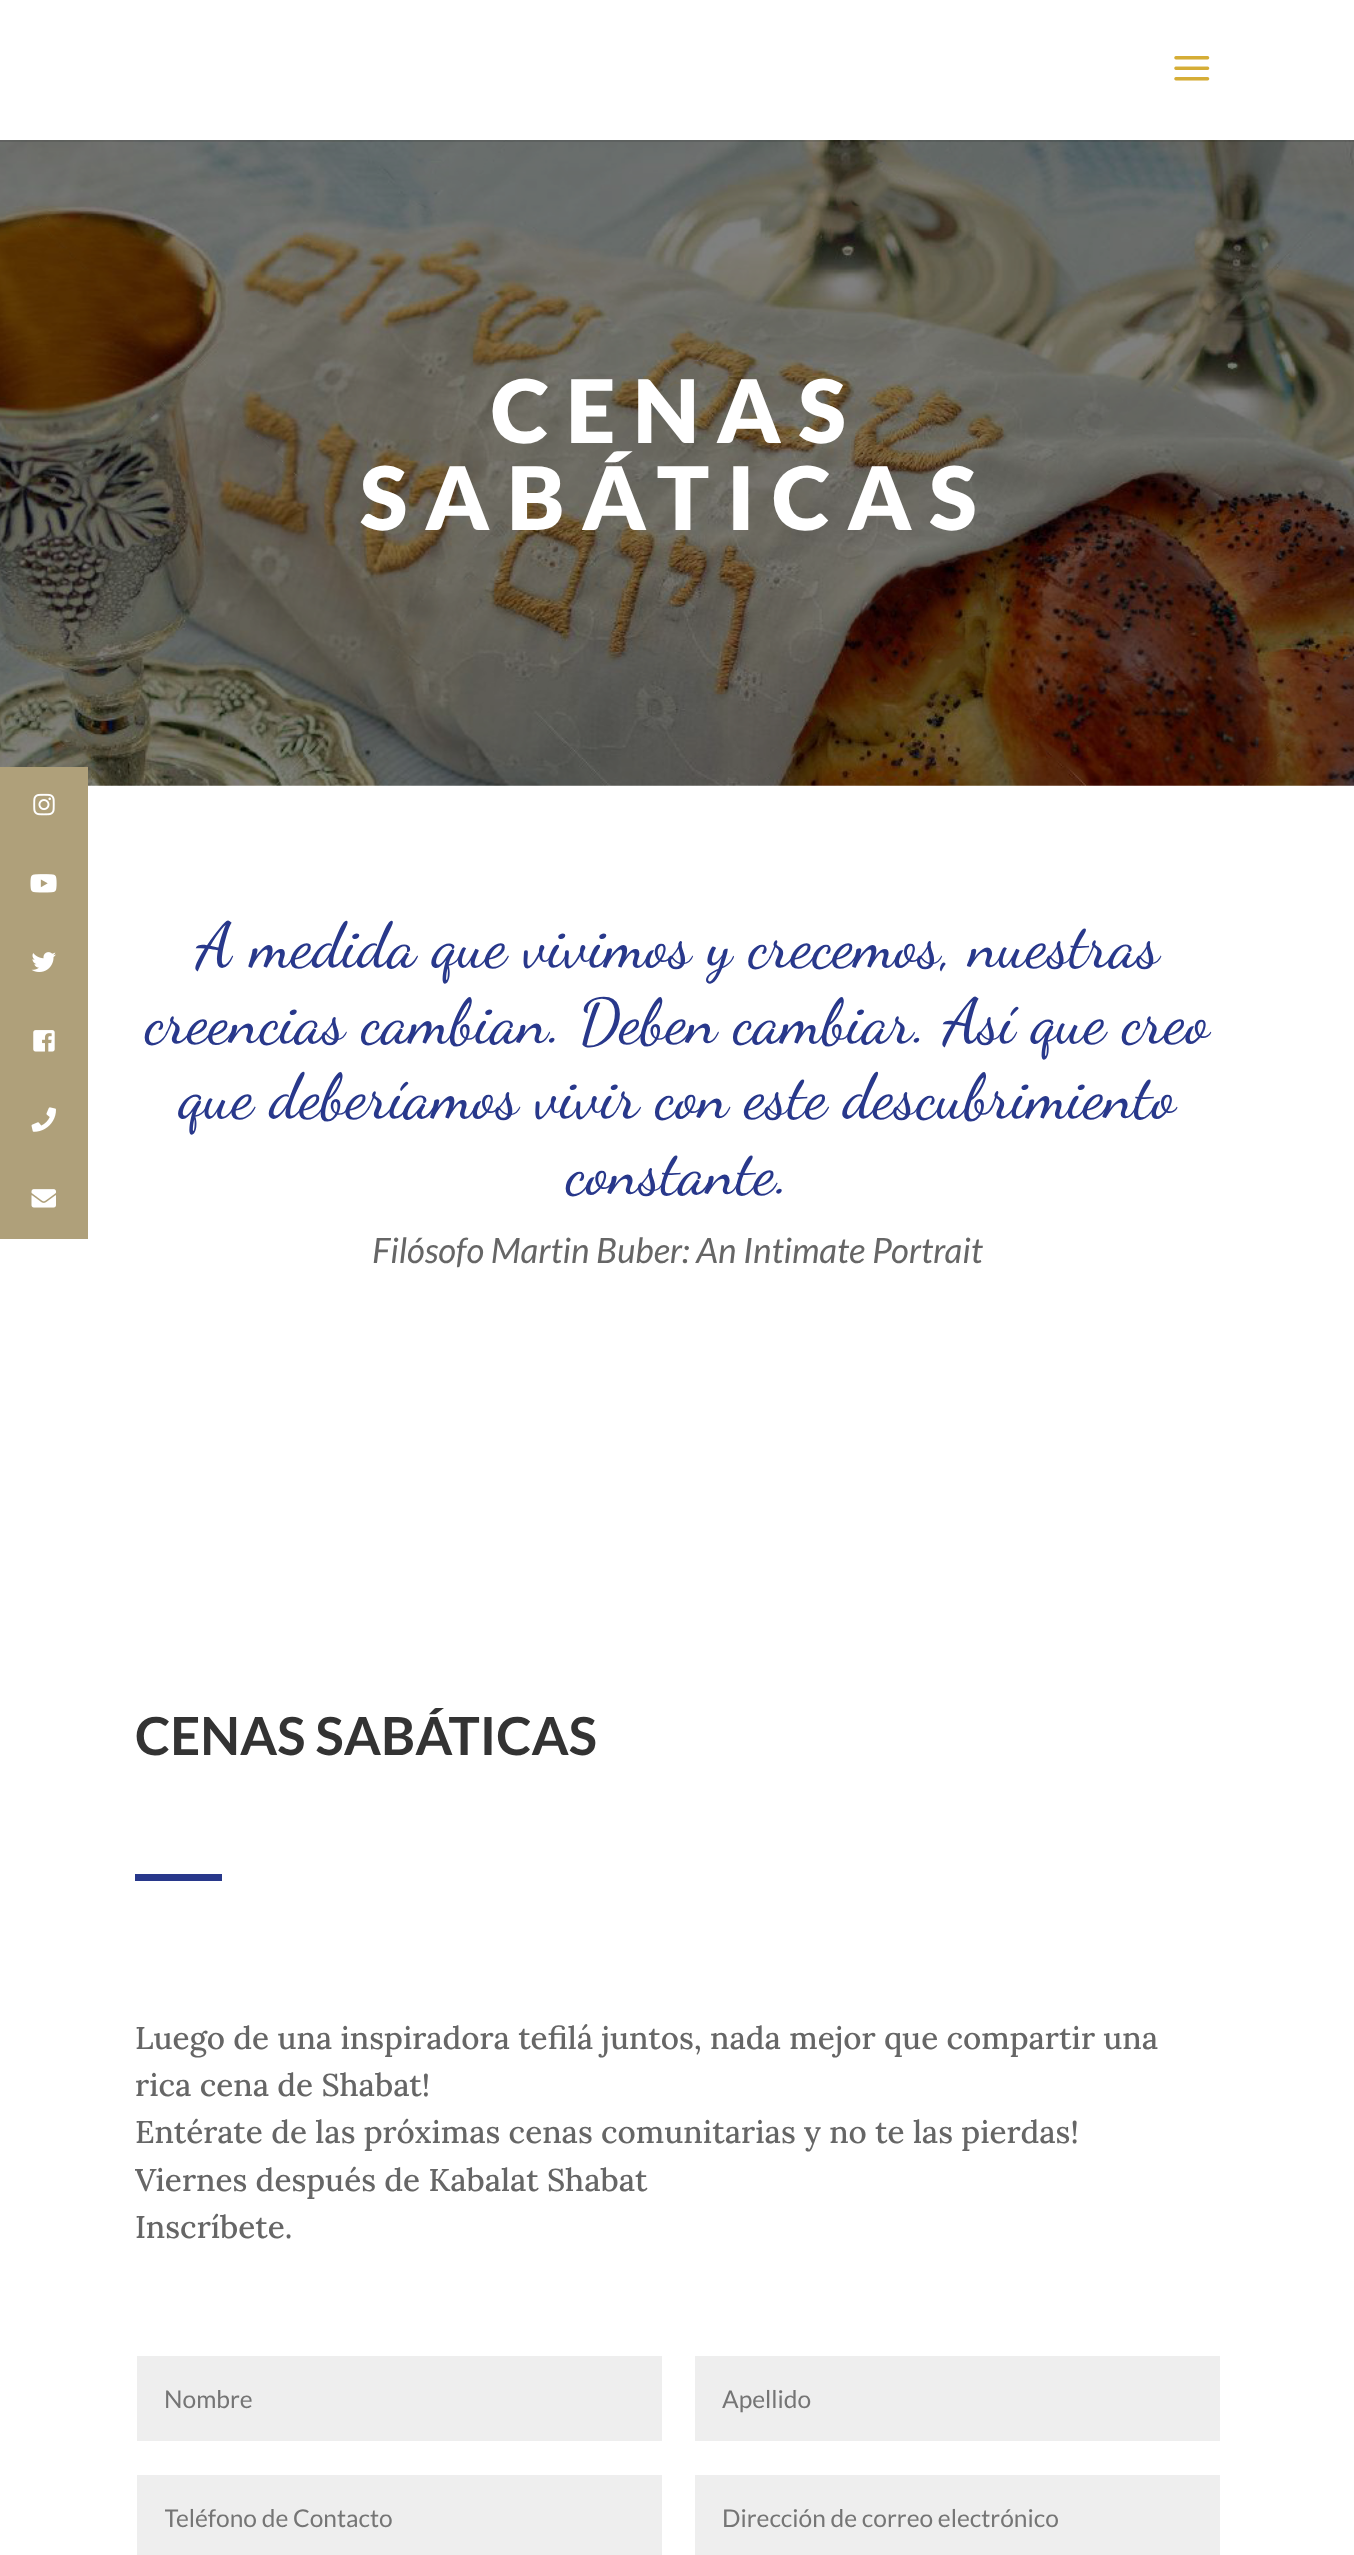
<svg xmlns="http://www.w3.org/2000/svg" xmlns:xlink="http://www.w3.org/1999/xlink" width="1354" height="2555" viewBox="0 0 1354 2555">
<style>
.cls-1{font:900 87.5px Lato;letter-spacing:17.5px;fill:#ffffff}
.cls-2{font:500 63px Dancing Script;fill:#28388b}
.cls-3{font:italic 35px Lato;fill:#666666}
.cls-4{font:bold 52.5px Lato;fill:#333333}
.cls-5{font:500 31.5px Lora;fill:#666666}
.cls-6{font:24.5px Lato;fill:#757575}
</style>
<defs>
<clipPath id="clip1"><rect x="165" y="2503" width="469" height="29"/></clipPath>
</defs>
<rect width="100%" height="100%" fill="#ffffff"/>
<image xlink:href="image7.png" x="0" y="140" width="1354" height="646"/>
<rect fill="#afa07a" x="0" y="767" width="88" height="472"/>
<image xlink:href="image0.png" x="33" y="793" width="22" height="23"/>
<image xlink:href="image1.png" x="30" y="874" width="27" height="19"/>
<image xlink:href="image2.png" x="31" y="952" width="25" height="20"/>
<image xlink:href="image3.png" x="33" y="1030" width="22" height="22"/>
<image xlink:href="image4.png" x="31" y="1107" width="25" height="25"/>
<image xlink:href="image5.png" x="31" y="1189" width="25" height="19"/>
<path fill="#000000" fill-opacity="0.1" d="M0 140V142H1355V2H1354V140Z"/>
<image xlink:href="image6.png" x="1174" y="56" width="36" height="25"/>
<rect fill="#28388b" x="135" y="1874" width="87" height="7"/>
<rect fill="#eeeeee" x="137" y="2356" width="525" height="85"/>
<rect fill="#eeeeee" x="695" y="2356" width="525" height="85"/>
<rect fill="#eeeeee" x="137" y="2475" width="525" height="80"/>
<rect fill="#eeeeee" x="695" y="2475" width="525" height="80"/>
<text class="cls-1" x="491" y="443">CENAS</text>
<text class="cls-1" x="360" y="530">SABÁTICAS</text>
<text class="cls-2" x="196" y="966">A medida que vivimos y crecemos, nuestras</text>
<text class="cls-2" x="145" y="1042">creencias cambian. Deben cambiar. Así que creo</text>
<text class="cls-2" x="179" y="1117">que deberíamos vivir con este descubrimiento</text>
<text class="cls-2" x="566" y="1193">constante.</text>
<text class="cls-3" x="372" y="1263">Filósofo Martin Buber: An Intimate Portrait</text>
<text class="cls-4" x="135" y="1755">CENAS SABÁTICAS</text>
<text class="cls-5"><tspan x="135" y="2049">Luego de una inspiradora tefilá juntos, nada mejor que compartir una</tspan><tspan x="135" y="2096">rica cena de Shabat!</tspan><tspan x="135" y="2143">Entérate de las próximas cenas comunitarias y no te las pierdas!</tspan><tspan x="135" y="2191">Viernes después de Kabalat Shabat</tspan><tspan x="135" y="2238">Inscríbete.</tspan></text>
<text class="cls-6" x="164" y="2408">Nombre</text>
<text class="cls-6" x="722" y="2408">Apellido</text>
<g clip-path="url(#clip1)">
<text class="cls-6" x="164" y="2527">Teléfono de Contacto</text>
</g>
<text class="cls-6" x="722" y="2527">Dirección de correo electrónico</text>
</svg>
